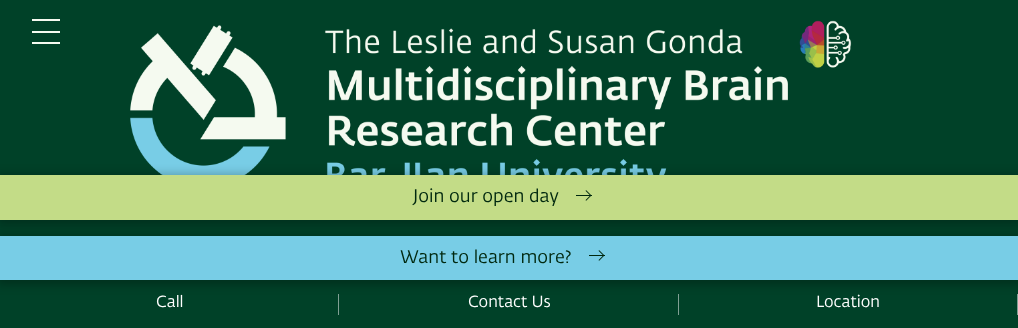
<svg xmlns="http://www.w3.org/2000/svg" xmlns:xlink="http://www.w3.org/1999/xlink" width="1018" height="328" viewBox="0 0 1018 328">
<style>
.cls-1{font:18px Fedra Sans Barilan;fill:#00280f}
.cls-2{font:16px Fedra Sans Barilan;fill:#ffffff}
</style>
<rect width="100%" height="100%" fill="#004128"/>
<rect fill="#f5faf0" x="32" y="19" width="28" height="2"/>
<rect fill="#f5faf0" x="32" y="31" width="28" height="2"/>
<rect fill="#f5faf0" x="32" y="42" width="28" height="2"/>
<image xlink:href="image0.png" x="130" y="20" width="722" height="155"/>
<rect fill="#000000" fill-opacity="0.25" filter="blur(5px)" x="-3" y="174" width="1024" height="51"/>
<rect fill="#c3dc87" x="0" y="175" width="1018" height="45"/>
<rect fill="#00280f" x="576" y="195" width="16" height="1"/>
<image xlink:href="image1.png" x="585" y="190" width="6" height="11"/>
<rect fill="#80a094" x="338" y="294" width="1" height="21"/>
<rect fill="#80a094" x="678" y="294" width="1" height="21"/>
<rect fill="#80a094" x="1017" y="294" width="1" height="21"/>
<rect fill="#000000" fill-opacity="0.25" filter="blur(5px)" x="-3" y="235" width="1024" height="50"/>
<rect fill="#78cde6" x="0" y="236" width="1018" height="44"/>
<rect fill="#00280f" x="589" y="255" width="16" height="1"/>
<image xlink:href="image2.png" x="598" y="250" width="6" height="11"/>
<text class="cls-1" x="413" y="202">Join our open day</text>
<text class="cls-1" x="400" y="263">Want to learn more?</text>
<text class="cls-2" x="156" y="307">Call</text>
<text class="cls-2" x="468" y="307">Contact Us</text>
<text class="cls-2" x="816" y="307">Location</text>
</svg>
